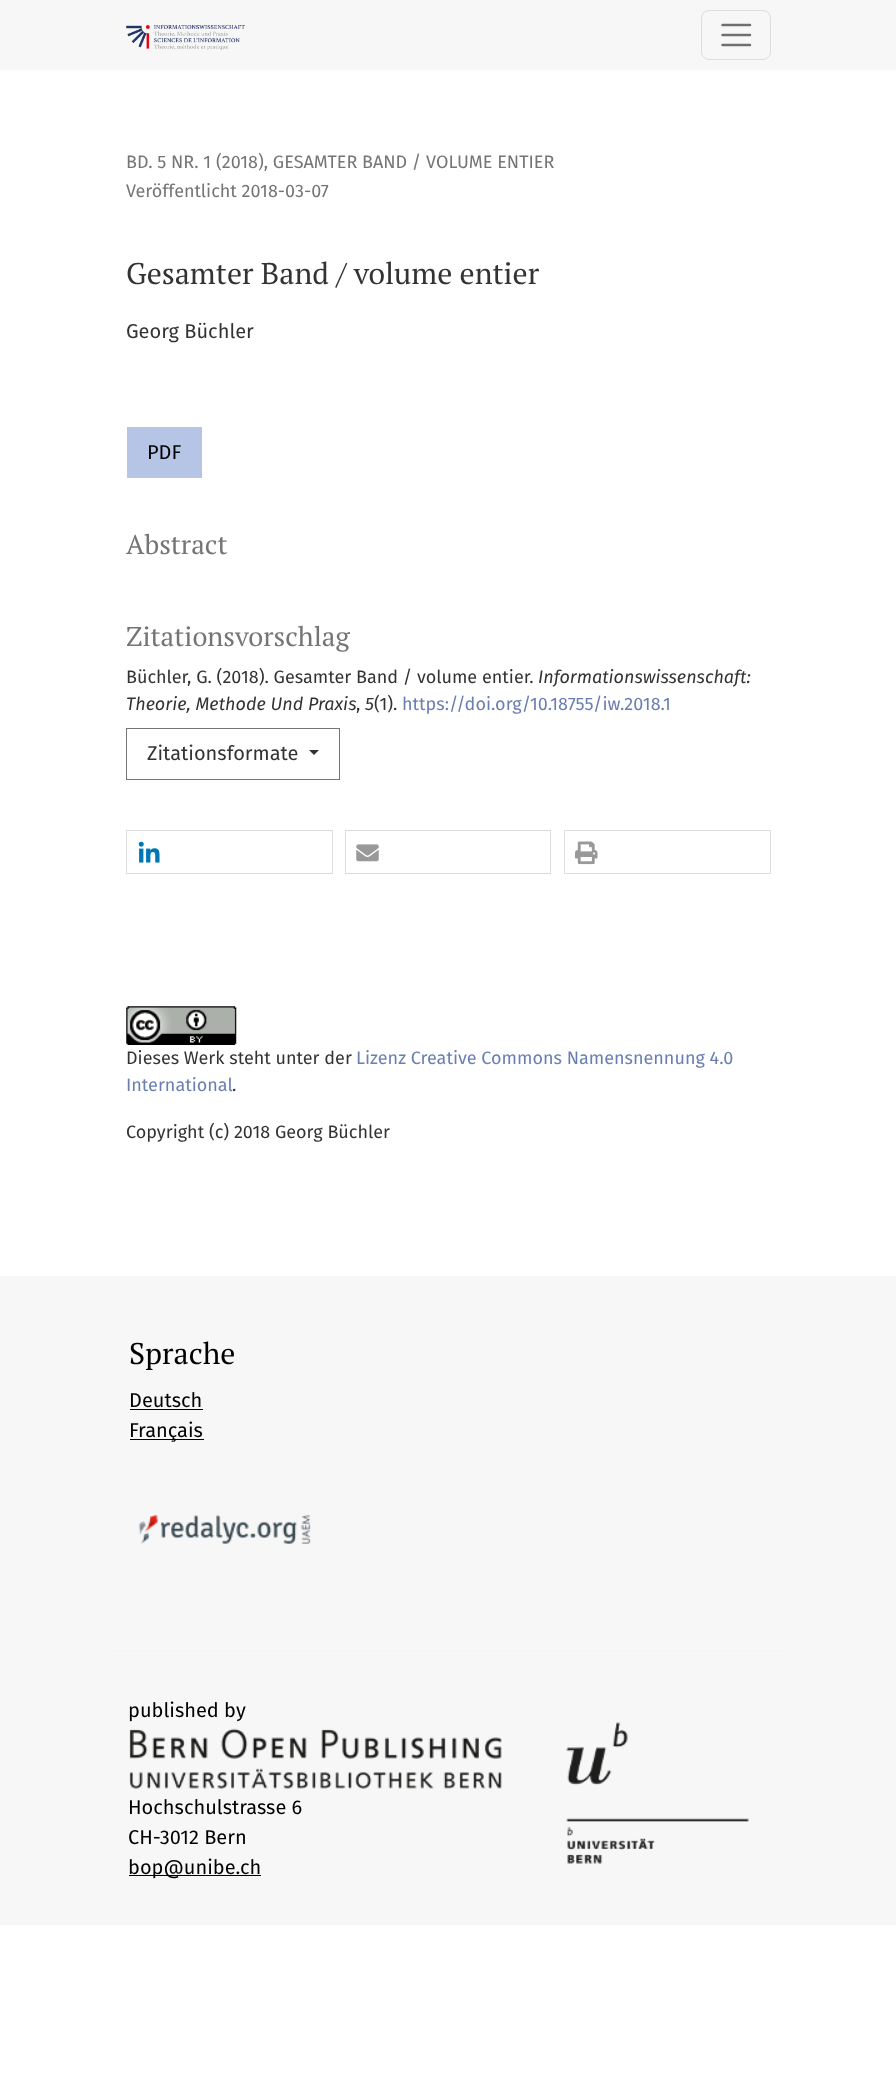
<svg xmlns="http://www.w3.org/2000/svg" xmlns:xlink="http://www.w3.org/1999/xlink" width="896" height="2100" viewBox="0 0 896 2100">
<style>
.cls-1{font:18px Fira Sans;fill:#757575}
.cls-2{font:30px PT Serif;fill:#333333}
.cls-3{font:20px Fira Sans;fill:#333333}
.cls-4{font:20px Fira Sans;fill:#000000}
.cls-5{font:27px PT Serif;fill:#757575}
.cls-6{font:18px Fira Sans;fill:#333333}
.cls-7{font:italic 18px Fira Sans;fill:#333333}
.cls-8{font:18px Fira Sans;fill:#6a7eb1}
.cls-9{font:30px PT Serif;fill:#000000}
</style>
<rect width="100%" height="100%" fill="#ffffff"/>
<rect fill="#f7f7f7" x="0" y="0" width="896" height="70"/>
<image xlink:href="image0.png" x="126" y="25" width="119" height="25"/>
<rect fill="none" stroke="#dedede" x="701.5" y="10.5" width="69" height="49" rx="7.5"/>
<path fill="none" stroke="#6f6f6f" stroke-width="2.5" stroke-linecap="round" d="M722.5 25H750M722.5 35H750M722.5 45H750"/>
<rect fill="#b6c4e6" x="127" y="427" width="75" height="51"/>
<rect fill="none" stroke="#757575" x="126.5" y="728.5" width="213" height="51"/>
<path fill="#333333" d="M309 750H319L314 755Z"/>
<rect fill="none" stroke="#dddddd" x="126.5" y="830.5" width="206" height="43"/>
<image xlink:href="image1.png" x="138" y="841" width="22" height="22"/>
<rect fill="none" stroke="#dddddd" x="345.5" y="830.5" width="205" height="43"/>
<image xlink:href="image2.png" x="356" y="844" width="23" height="18"/>
<rect fill="none" stroke="#dddddd" x="564.5" y="830.5" width="206" height="43"/>
<image xlink:href="image3.png" x="575" y="841" width="23" height="24"/>
<image xlink:href="image4.png" x="126" y="1006" width="111" height="39"/>
<rect fill="#f7f7f7" x="0" y="1276" width="896" height="649"/>
<rect fill="#fafafa" x="111" y="1653" width="675" height="1"/>
<rect fill="#000000" x="130" y="1409" width="73" height="1"/>
<rect fill="#000000" x="130" y="1439" width="74" height="1"/>
<image xlink:href="image5.png" x="138" y="1514" width="173" height="30"/>
<image xlink:href="image6.png" x="129" y="1728" width="373" height="61"/>
<rect fill="#000000" x="129" y="1875" width="132" height="1"/>
<image xlink:href="image7.png" x="566" y="1722" width="183" height="142"/>
<text class="cls-1"><tspan x="126" y="168">BD. 5 NR. 1 (2018), GESAMTER BAND / VOLUME ENTIER</tspan><tspan x="126" y="197">Veröffentlicht 2018-03-07</tspan></text>
<text class="cls-2" x="126" y="284">Gesamter Band / volume entier</text>
<text class="cls-3" x="126" y="338">Georg Büchler</text>
<text class="cls-4" x="147" y="459">PDF</text>
<text class="cls-5" x="126" y="554">Abstract</text>
<text class="cls-5" x="126" y="646">Zitationsvorschlag</text>
<text class="cls-6" x="126" y="683">Büchler, G. (2018). Gesamter Band / volume entier.</text>
<text class="cls-7" x="538" y="683">Informationswissenschaft:</text>
<text class="cls-7" x="126" y="710">Theorie, Methode Und Praxis</text>
<text class="cls-6" x="356" y="710">,</text>
<text class="cls-7" x="365" y="710">5</text>
<text class="cls-6" x="374" y="710">(1).</text>
<text class="cls-8" x="402" y="710">https://doi.org/10.18755/iw.2018.1</text>
<text class="cls-3" x="147" y="760">Zitationsformate</text>
<text class="cls-6" x="126" y="1064">Dieses Werk steht unter der</text>
<text class="cls-8" x="356" y="1064">Lizenz Creative Commons Namensnennung 4.0</text>
<text class="cls-8" x="126" y="1091">International</text>
<text class="cls-6" x="232" y="1091">.</text>
<text class="cls-6" x="126" y="1138">Copyright (c) 2018 Georg Büchler</text>
<text class="cls-9" x="129" y="1364">Sprache</text>
<text class="cls-4"><tspan x="129" y="1407">Deutsch</tspan><tspan x="129" y="1437">Français</tspan></text>
<text class="cls-4" x="128" y="1717">published by</text>
<text class="cls-4"><tspan x="128" y="1814">Hochschulstrasse 6</tspan><tspan x="128" y="1844">CH-3012 Bern</tspan><tspan x="128" y="1874">bop@unibe.ch</tspan></text>
</svg>
